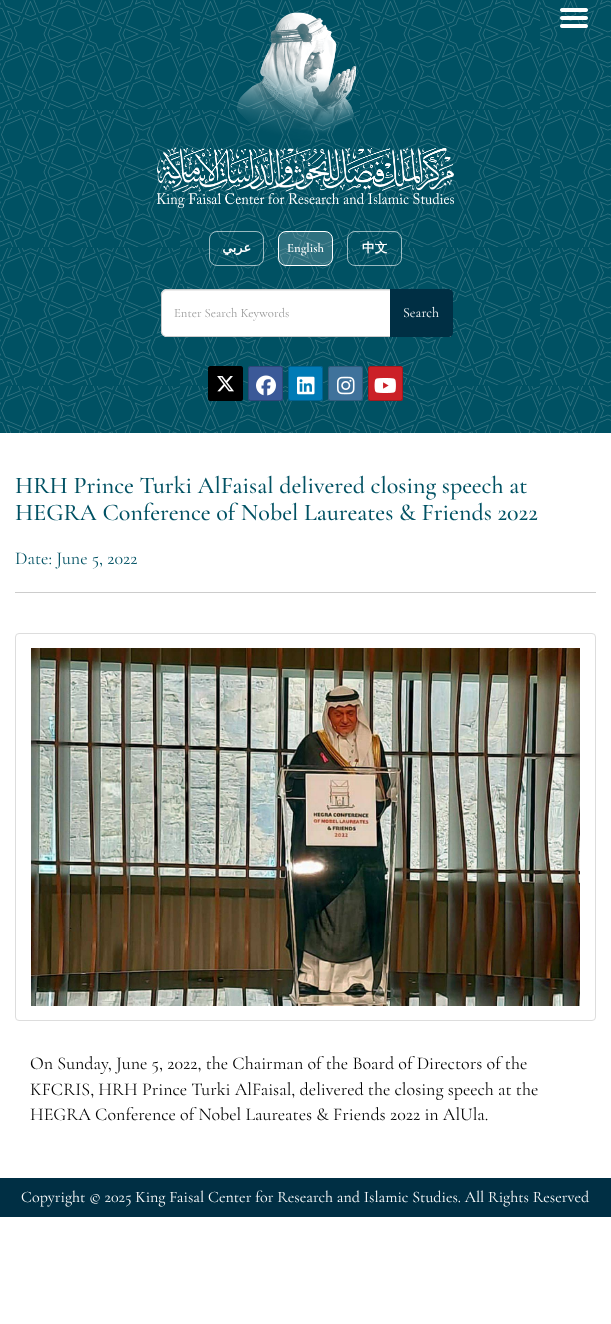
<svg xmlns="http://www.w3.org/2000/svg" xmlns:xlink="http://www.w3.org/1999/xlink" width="611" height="1324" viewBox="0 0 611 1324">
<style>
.cls-1{font:bold 12.75px DejaVu Sans;direction:rtl;fill:#ffffff}
.cls-2{font:600 12.75px Cormorant Garamond;fill:#ffffff}
.cls-3{font:bold 12.75px WenQuanYi Zen Hei;fill:#ffffff}
.cls-4{font:12.75px Cormorant Garamond;fill:#999999}
.cls-5{font:14px Cormorant Garamond;fill:#ffffff}
.cls-6{font:500 24px Cormorant Garamond;fill:#005163}
.cls-7{font:18px Cormorant Garamond;fill:#005163}
.cls-8{font:18px Cormorant Garamond;fill:#000000}
.cls-9{font:16px Cormorant Garamond;fill:#ffffff}
</style>
<rect width="100%" height="100%" fill="#ffffff"/>
<rect fill="#005163" x="0" y="0" width="611" height="433"/>
<image xlink:href="image0.png" x="0" y="0" width="611" height="433"/>
<image xlink:href="image1.png" x="157" y="12" width="297" height="196"/>
<image xlink:href="image2.png" x="560" y="8" width="28" height="20"/>
<rect fill="none" stroke="#ffffff" stroke-opacity="0.6" x="209.5" y="231.5" width="54" height="34" rx="7.5"/>
<rect fill="#ffffff" fill-opacity="0.18" stroke="#ffffff" x="278.5" y="231.5" width="54" height="34" rx="7.5"/>
<rect fill="none" stroke="#ffffff" stroke-opacity="0.6" x="347.5" y="231.5" width="54" height="34" rx="7.5"/>
<path fill="#ffffff" d="M167 289H451V337H167C163.5 337 161 334.5 161 331V295C161 291.5 163.5 289 167 289Z"/>
<path fill="#ececec" d="M167 291H451V290H167C164 290 162 292 162 295V296C162 293 164 291 167 291Z"/>
<path fill="#cccccc" fill-rule="evenodd" d="M167 289H451V337H167C164 337 161 334 161 331V295C161 292 164 289 167 289ZM167 290H451V336H167C164 336 162 334 162 331V295C162 292 164 290 167 290Z"/>
<path fill="#002f44" d="M390 289H449C451 289 453 291 453 293V333C453 335 451 337 449 337H390Z"/>
<rect fill="#000000" x="208" y="366" width="35" height="35" rx="2.5"/>
<rect fill="none" stroke="#000000" stroke-opacity="0.2" x="208.5" y="366.5" width="34" height="34" rx="2"/>
<image xlink:href="image3.png" x="217" y="376" width="17" height="16"/>
<rect fill="#3b5998" x="248" y="366" width="35" height="35" rx="2.5"/>
<rect fill="none" stroke="#000000" stroke-opacity="0.2" x="248.5" y="366.5" width="34" height="34" rx="2"/>
<image xlink:href="image4.png" x="256" y="375" width="20" height="21"/>
<rect fill="#007bb6" x="288" y="366" width="35" height="35" rx="2.5"/>
<rect fill="none" stroke="#000000" stroke-opacity="0.2" x="288.5" y="366.5" width="34" height="34" rx="2"/>
<image xlink:href="image5.png" x="297" y="376" width="18" height="19"/>
<rect fill="#3f729b" x="328" y="366" width="35" height="35" rx="2.5"/>
<rect fill="none" stroke="#000000" stroke-opacity="0.2" x="328.5" y="366.5" width="34" height="34" rx="2"/>
<image xlink:href="image6.png" x="337" y="376" width="18" height="19"/>
<rect fill="#cb2027" x="368" y="366" width="35" height="35" rx="2.5"/>
<rect fill="none" stroke="#000000" stroke-opacity="0.2" x="368.5" y="366.5" width="34" height="34" rx="2"/>
<image xlink:href="image7.png" x="374" y="378" width="22" height="15"/>
<rect fill="#cccccc" x="15" y="592" width="581" height="1"/>
<rect fill="none" stroke="#dddddd" x="15.5" y="633.5" width="580" height="387" rx="3.5"/>
<image xlink:href="image8.png" x="31" y="648" width="549" height="358"/>
<rect fill="#002f44" x="0" y="1178" width="611" height="39"/>
<text class="cls-1" x="251" y="252">عربي</text>
<text class="cls-2" x="287" y="252">English</text>
<text class="cls-3" x="362" y="252">中文</text>
<text class="cls-4" x="174" y="317">Enter Search Keywords</text>
<text class="cls-5" x="403" y="317">Search</text>
<text class="cls-6"><tspan x="15" y="493">HRH Prince Turki AlFaisal delivered closing speech at</tspan><tspan x="15" y="520">HEGRA Conference of Nobel Laureates &amp; Friends 2022</tspan></text>
<text class="cls-7" x="15" y="564">Date: June 5, 2022</text>
<text class="cls-8"><tspan x="30" y="1069">On Sunday, June 5, 2022, the Chairman of the Board of Directors of the</tspan><tspan x="30" y="1095">KFCRIS, HRH Prince Turki AlFaisal, delivered the closing speech at the</tspan><tspan x="30" y="1120">HEGRA Conference of Nobel Laureates &amp; Friends 2022 in AlUla.</tspan></text>
<text class="cls-9" x="21" y="1202">Copyright © 2025 King Faisal Center for Research and Islamic Studies. All Rights Reserved</text>
</svg>
